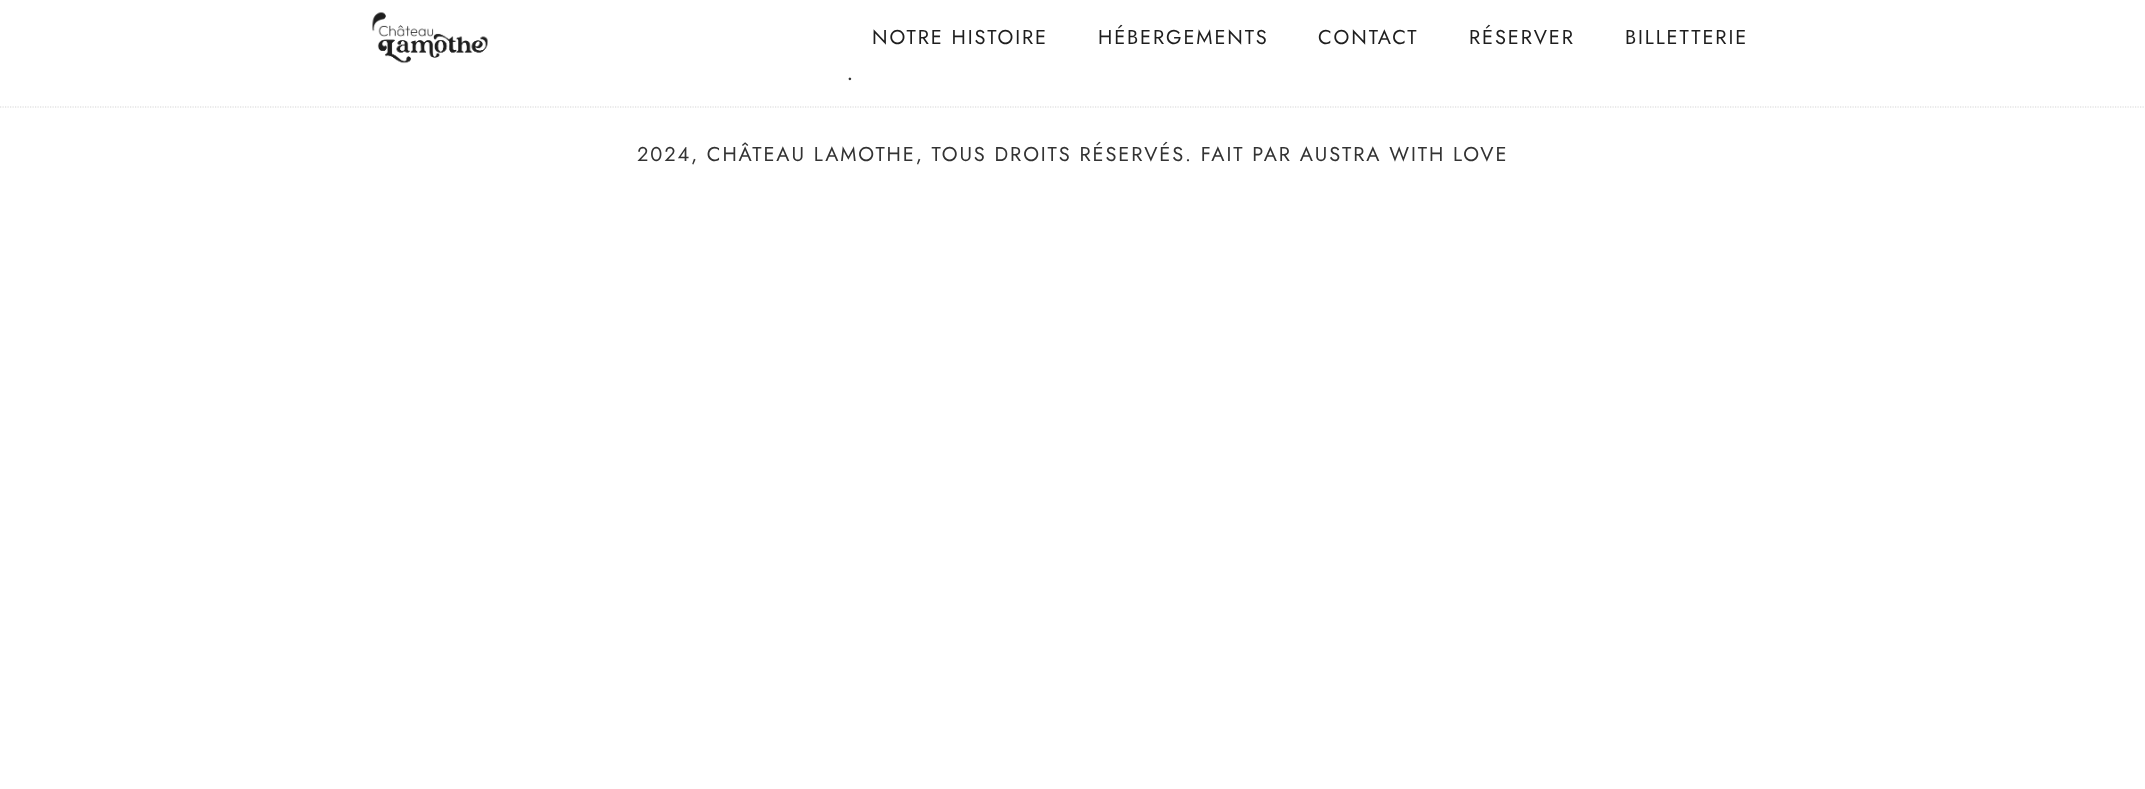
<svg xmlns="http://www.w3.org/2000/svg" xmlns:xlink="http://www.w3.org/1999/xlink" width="2145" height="789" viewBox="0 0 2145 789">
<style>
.cls-1{font:20px Jost;letter-spacing:1.88px;fill:#1e1e1e}
.cls-2{font:20px Inter;fill:#333333}
.cls-3{font:20px Jost;letter-spacing:1.88px;fill:#333333}
</style>
<rect width="100%" height="100%" fill="#ffffff"/>
<image xlink:href="image0.png" x="372" y="12" width="116" height="52"/>
<path fill="none" stroke="#d6d6d6" stroke-width="1.2" stroke-dasharray="1.25 1.25" d="M0 107H2145"/>
<text class="cls-1" x="872" y="44">NOTRE HISTOIRE</text>
<text class="cls-1" x="1098" y="44">HÉBERGEMENTS</text>
<text class="cls-1" x="1318" y="44">CONTACT</text>
<text class="cls-1" x="1469" y="44">RÉSERVER</text>
<text class="cls-1" x="1625" y="44">BILLETTERIE</text>
<text class="cls-2" x="847" y="80">.</text>
<text class="cls-3" x="637" y="161">2024, CHÂTEAU LAMOTHE, TOUS DROITS RÉSERVÉS. FAIT PAR AUSTRA WITH LOVE</text>
</svg>
